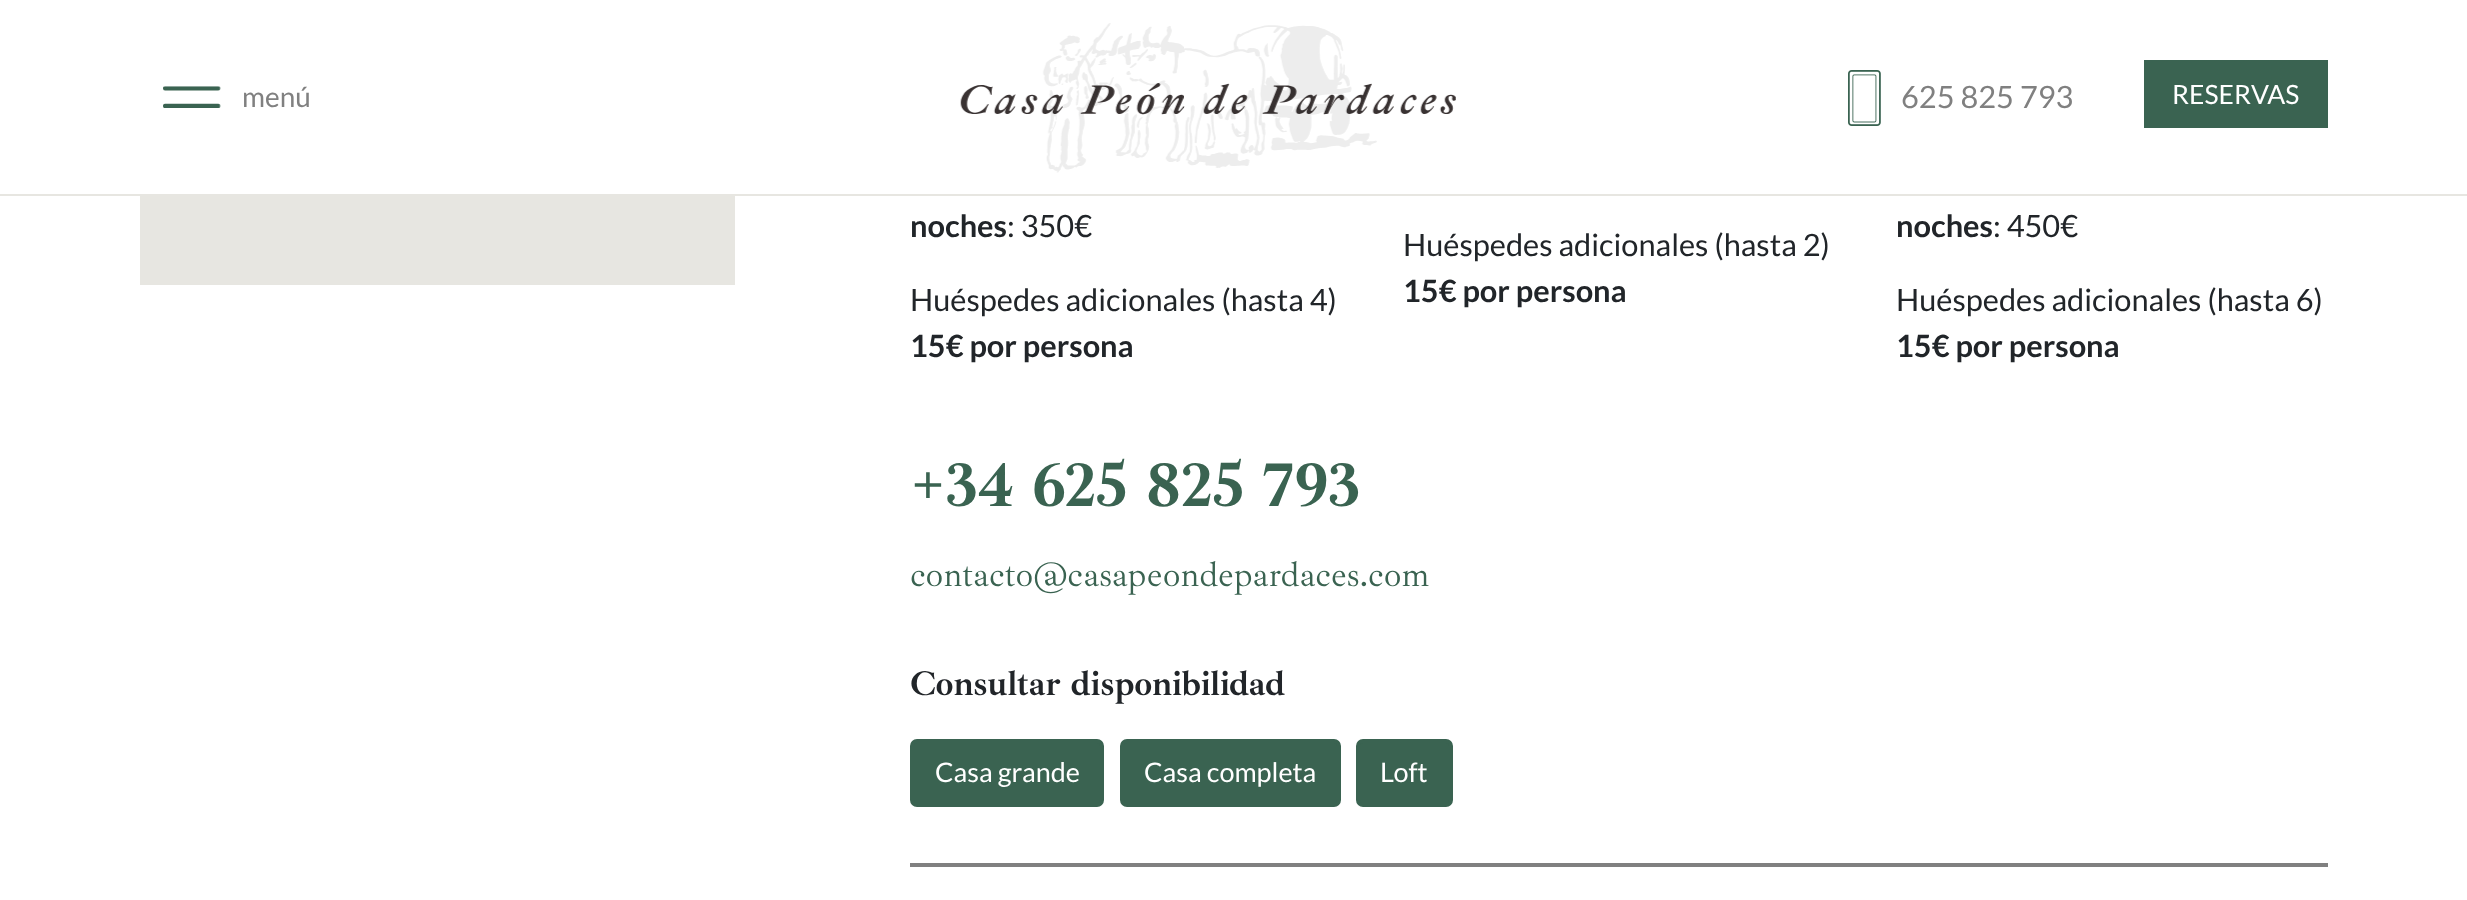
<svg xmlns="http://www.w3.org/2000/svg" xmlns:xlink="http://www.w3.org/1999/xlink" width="2467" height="900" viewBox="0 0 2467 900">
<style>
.cls-1{font:28px Lato;fill:#808080}
.cls-2{font:30.75px Lato;fill:#808080}
.cls-3{font:26.5px Lato;fill:#ffffff}
.cls-4{font:bold 30.75px Lato;fill:#212529}
.cls-5{font:30.75px Lato;fill:#212529}
.cls-6{font:bold 63px Ibarra Real Nova;fill:#3a6351}
.cls-7{font:35px Ibarra Real Nova;fill:#3a6351}
.cls-8{font:bold 35px Ibarra Real Nova;fill:#212529}
.cls-9{font:27px Lato;fill:#ffffff}
</style>
<rect width="100%" height="100%" fill="#ffffff"/>
<rect fill="#e7e6e1" x="0" y="194" width="2467" height="2"/>
<image xlink:href="image0.png" x="163" y="86" width="58" height="22"/>
<image xlink:href="image1.png" x="960" y="23" width="496" height="150"/>
<image xlink:href="image2.png" x="1848" y="70" width="33" height="56"/>
<rect fill="#3a6351" x="2144" y="60" width="184" height="68"/>
<rect fill="#e7e6e1" x="140" y="196" width="595" height="89"/>
<rect fill="#3a6351" stroke="#3a6351" stroke-width="4" x="912" y="741" width="190" height="64" rx="5"/>
<rect fill="#3a6351" stroke="#3a6351" stroke-width="4" x="1122" y="741" width="217" height="64" rx="5"/>
<rect fill="#3a6351" stroke="#3a6351" stroke-width="4" x="1358" y="741" width="93" height="64" rx="5"/>
<rect fill="#808080" x="910" y="863" width="1418" height="4"/>
<text class="cls-1" x="242" y="107">menú</text>
<text class="cls-2" x="1901" y="108">625 825 793</text>
<text class="cls-3" x="2172" y="104">RESERVAS</text>
<text class="cls-4" x="910" y="237">noches</text>
<text class="cls-5" x="1007" y="237">: 350€</text>
<text class="cls-5" x="910" y="311">Huéspedes adicionales (hasta 4)</text>
<text class="cls-4" x="910" y="357">15€ por persona</text>
<text class="cls-5" x="1403" y="256">Huéspedes adicionales (hasta 2)</text>
<text class="cls-4" x="1403" y="302">15€ por persona</text>
<text class="cls-4" x="1896" y="237">noches</text>
<text class="cls-5" x="1993" y="237">: 450€</text>
<text class="cls-5" x="1896" y="311">Huéspedes adicionales (hasta 6)</text>
<text class="cls-4" x="1896" y="357">15€ por persona</text>
<text class="cls-6" x="910" y="506">+34 625 825 793</text>
<text class="cls-7" x="910" y="586">contacto@casapeondepardaces.com</text>
<text class="cls-8" x="910" y="695">Consultar disponibilidad</text>
<text class="cls-9" x="935" y="782">Casa grande</text>
<text class="cls-9" x="1144" y="782">Casa completa</text>
<text class="cls-9" x="1380" y="782">Loft</text>
</svg>
